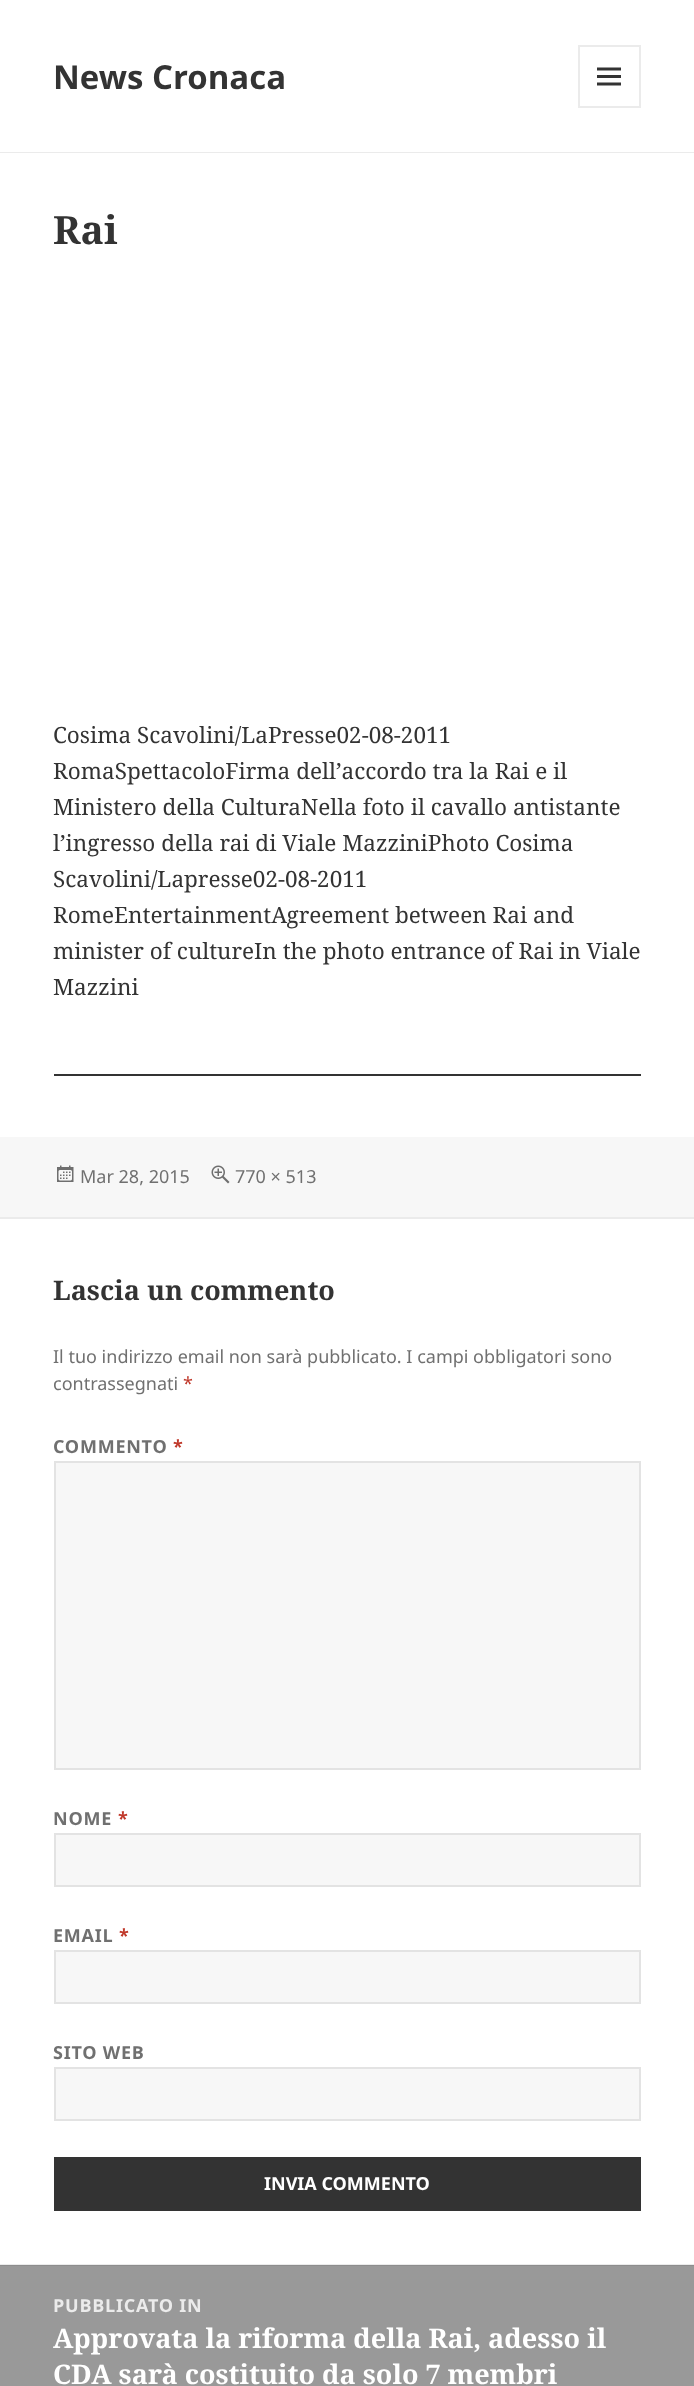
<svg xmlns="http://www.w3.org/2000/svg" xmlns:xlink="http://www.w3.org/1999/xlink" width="694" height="2386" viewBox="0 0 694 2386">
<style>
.cls-1{font:bold 33px Noto Sans;fill:#333333}
.cls-2{font:bold 39px Noto Serif;fill:#333333}
.cls-3{font:22.5px Noto Serif;fill:#333333}
.cls-4{font:18px Noto Sans;fill:#707070}
.cls-5{font:bold 27px Noto Serif;fill:#333333}
.cls-6{font:18px Noto Sans;fill:#c0392b}
.cls-7{font:bold 18px Noto Sans;letter-spacing:0.75px;fill:#707070}
.cls-8{font:bold 18px Noto Sans;letter-spacing:0.75px;fill:#c0392b}
.cls-9{font:bold 18px Noto Sans;fill:#ffffff}
.cls-10{font:bold 18px Noto Sans;letter-spacing:0.75px;fill:#ebebeb}
.cls-11{font:bold 27px Noto Serif;fill:#ffffff}
</style>
<rect width="100%" height="100%" fill="#ffffff"/>
<rect fill="#ebebeb" x="0" y="152" width="694" height="1"/>
<rect fill="none" stroke="#ebebeb" stroke-width="2" x="579" y="46" width="61" height="61"/>
<image xlink:href="image0.png" x="597" y="67" width="24" height="19"/>
<rect fill="#333333" x="54" y="1074" width="587" height="2"/>
<rect fill="#f7f7f7" x="0" y="1137" width="694" height="80"/>
<image xlink:href="image1.png" x="57" y="1165" width="17" height="17"/>
<image xlink:href="image2.png" x="211" y="1165" width="19" height="19"/>
<rect fill="#ebebeb" x="0" y="1217" width="694" height="2"/>
<rect fill="#f7f7f7" stroke="#e3e3e3" stroke-width="2" x="55" y="1462" width="585" height="307"/>
<rect fill="#f7f7f7" stroke="#e3e3e3" stroke-width="2" x="55" y="1834" width="585" height="52"/>
<rect fill="#f7f7f7" stroke="#e3e3e3" stroke-width="2" x="55" y="1951" width="585" height="52"/>
<rect fill="#f7f7f7" stroke="#e3e3e3" stroke-width="2" x="55" y="2068" width="585" height="52"/>
<rect fill="#333333" x="54" y="2157" width="587" height="54"/>
<rect fill="#999999" x="0" y="2266" width="694" height="120"/>
<rect fill="#ebebeb" x="0" y="2264" width="694" height="1"/>
<rect fill="#8d8d8d" x="0" y="2265" width="694" height="1"/>
<text class="cls-1" x="53" y="89">News Cronaca</text>
<text class="cls-2" x="53" y="244">Rai</text>
<text class="cls-3"><tspan x="53" y="743">Cosima Scavolini/LaPresse02-08-2011</tspan><tspan x="53" y="779">RomaSpettacoloFirma dell’accordo tra la Rai e il</tspan><tspan x="53" y="815">Ministero della CulturaNella foto il cavallo antistante</tspan><tspan x="53" y="851">l’ingresso della rai di Viale MazziniPhoto Cosima</tspan><tspan x="53" y="887">Scavolini/Lapresse02-08-2011</tspan><tspan x="53" y="923">RomeEntertainmentAgreement between Rai and</tspan><tspan x="53" y="959">minister of cultureIn the photo entrance of Rai in Viale</tspan><tspan x="53" y="995">Mazzini</tspan></text>
<text class="cls-4" x="80" y="1183">Mar 28, 2015</text>
<text class="cls-4" x="235" y="1183">770 × 513</text>
<text class="cls-5" x="53" y="1300">Lascia un commento</text>
<text class="cls-4"><tspan x="53" y="1363">Il tuo indirizzo email non sarà pubblicato. I campi obbligatori sono</tspan><tspan x="53" y="1390">contrassegnati</tspan></text>
<text class="cls-6" x="183" y="1390">*</text>
<text class="cls-7" x="53" y="1453">COMMENTO</text>
<text class="cls-8" x="173" y="1453">*</text>
<text class="cls-7" x="53" y="1825">NOME</text>
<text class="cls-8" x="118" y="1825">*</text>
<text class="cls-7" x="53" y="1942">EMAIL</text>
<text class="cls-8" x="119" y="1942">*</text>
<text class="cls-7" x="53" y="2059">SITO WEB</text>
<text class="cls-9" x="264" y="2190">INVIA COMMENTO</text>
<text class="cls-10" x="53" y="2312">PUBBLICATO IN</text>
<text class="cls-11"><tspan x="53" y="2348">Approvata la riforma della Rai, adesso il</tspan><tspan x="53" y="2384">CDA sarà costituito da solo 7 membri</tspan></text>
</svg>
